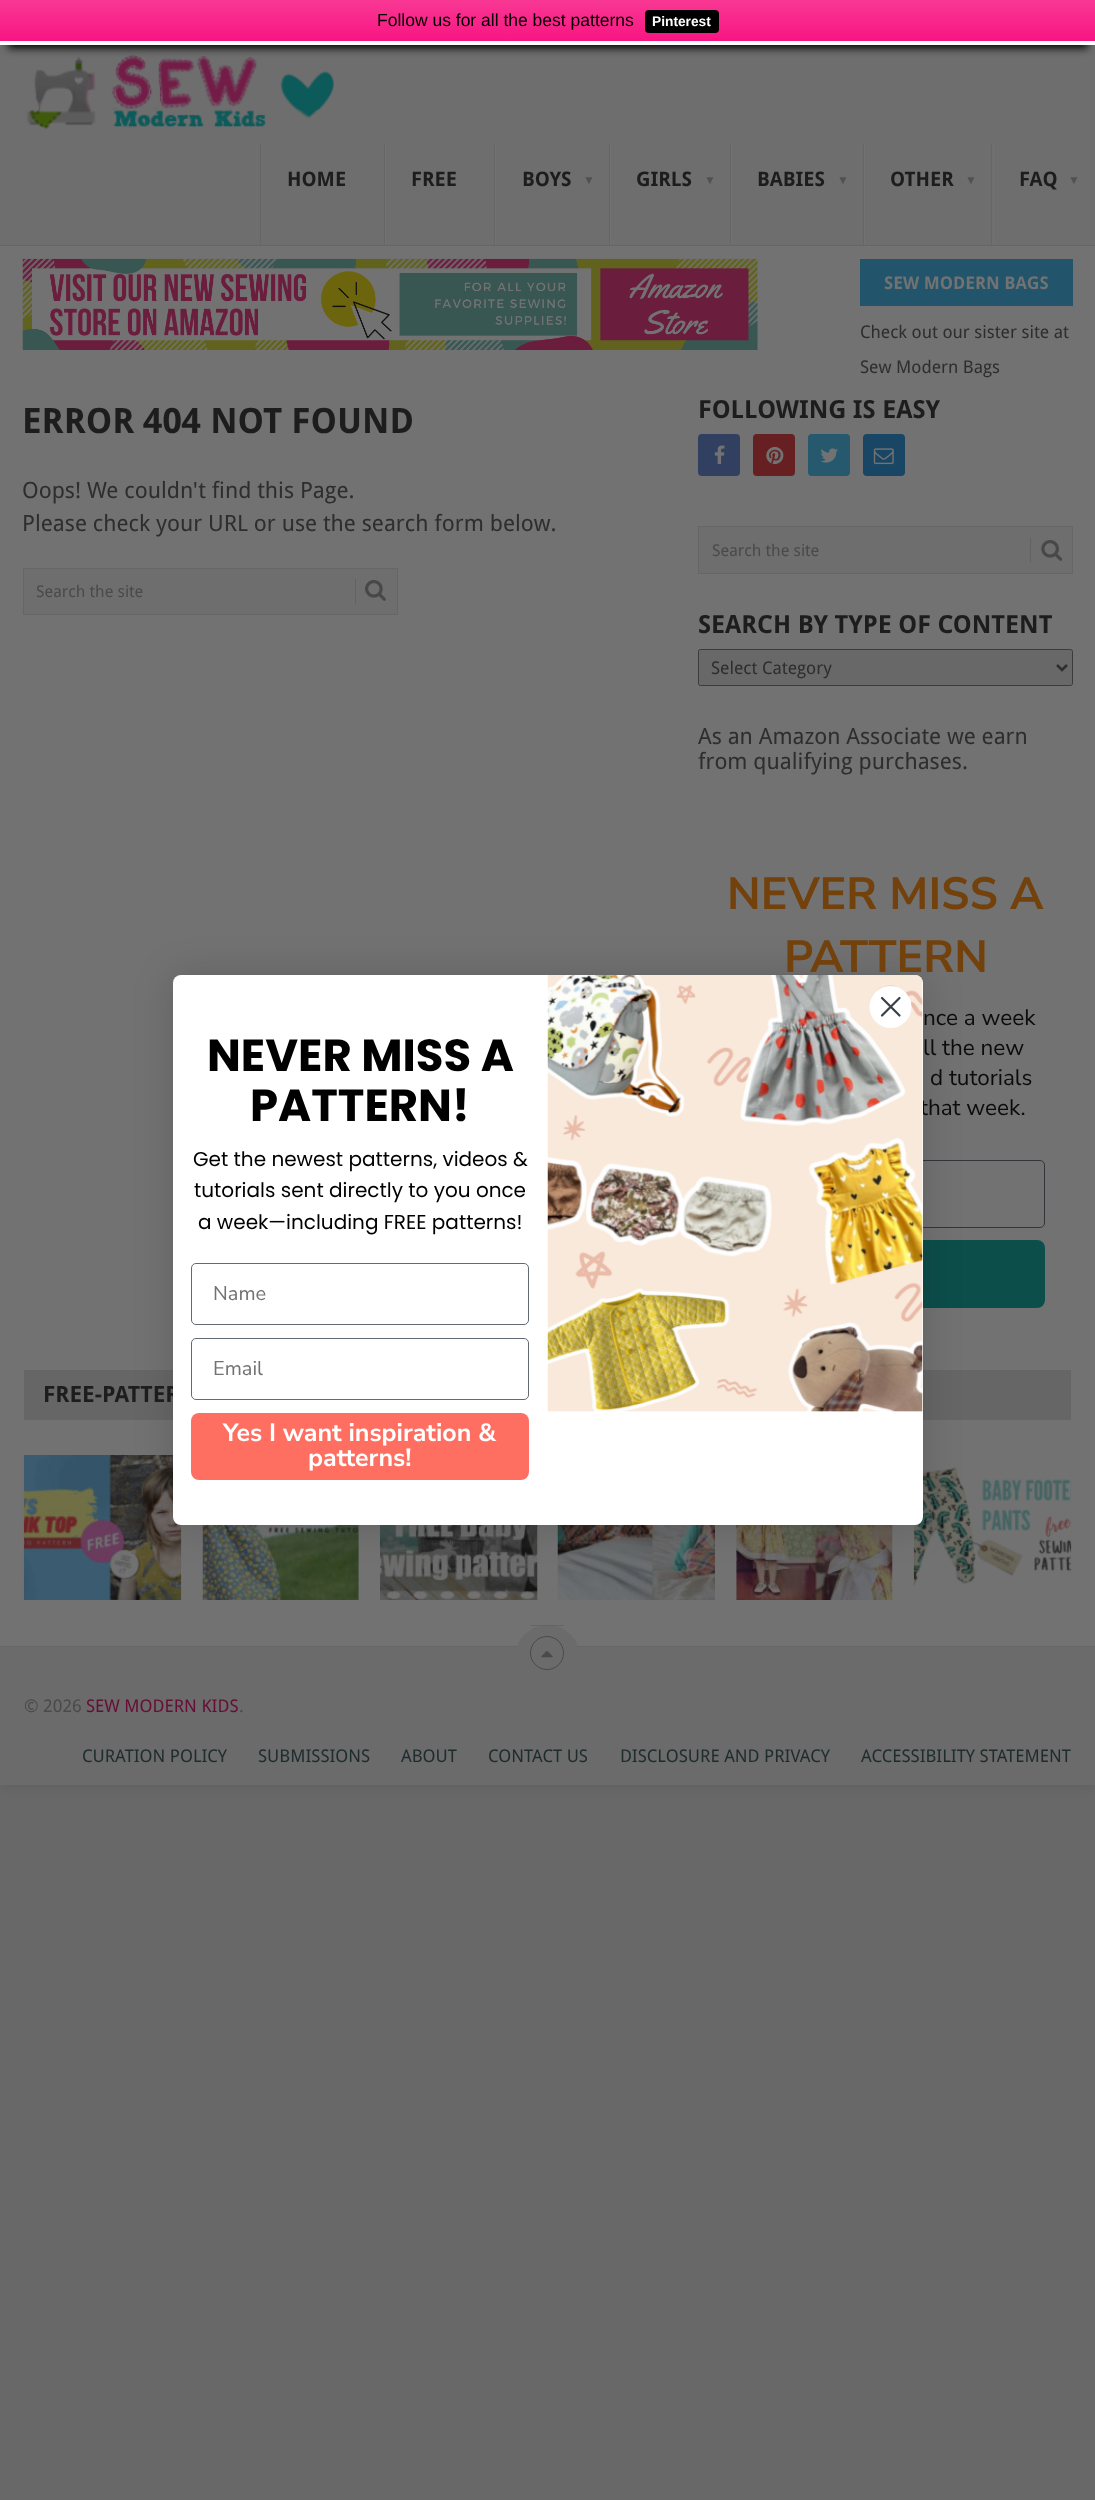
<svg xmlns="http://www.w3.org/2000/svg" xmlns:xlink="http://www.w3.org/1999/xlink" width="1095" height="2500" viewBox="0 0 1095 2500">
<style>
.cls-1{font:17.5px Liberation Sans;fill:#000000}
.cls-2{font:bold 13.75px Liberation Sans;fill:#ffffff}
.cls-3{font:bold 20px Droid Sans;fill:#1d1d1d}
.cls-4{font:bold 12px Liberation Sans;fill:#515151}
.cls-5{font:bold 17.5px Droid Sans;fill:#727272}
.cls-6{font:17.5px Droid Sans;fill:#2e2e2e}
.cls-7{font:bold 35px Droid Sans;fill:#1d1d1d}
.cls-8{font:22.5px Droid Sans;fill:#2e2e2e}
.cls-9{font:16.25px Droid Sans;fill:#4a4a4a}
.cls-10{font:bold 25px Droid Sans;fill:#1d1d1d}
.cls-11{font:bold 45px Nunito Sans;fill:#72410c}
.cls-12{font:22.5px Nunito Sans;fill:#0c0c0c}
.cls-13{font:bold 22.5px Droid Sans;fill:#1d1d1d}
.cls-14{font:17.5px Droid Sans;fill:#4a4a4a}
.cls-15{font:17.5px Droid Sans;fill:#660e36}
.cls-16{font:17.5px Droid Sans;fill:#1f2c2c}
.cls-17{font:bold 45px Poppins;fill:#000000}
.cls-18{font:20px Poppins;fill:#000000}
.cls-19{font:20px Nunito Sans;fill:#727272}
.cls-20{font:bold 25px Nunito Sans;fill:#ffffff}
</style>
<defs>
<linearGradient id="g1" gradientUnits="userSpaceOnUse" x1="548" y1="0" x2="548" y2="41"><stop offset="0" stop-color="#f93894"/><stop offset="1" stop-color="#f81581"/></linearGradient>
</defs>
<rect width="100%" height="100%" fill="#686868"/>
<rect fill="#202020" fill-opacity="0.17" filter="blur(6px)" x="0" y="41" width="1095" height="1744"/>
<rect fill="#6e6e6e" x="0" y="45" width="1095" height="200"/>
<image xlink:href="image0.png" x="26" y="55" width="308" height="75"/>
<rect fill="#000000" filter="blur(4px)" x="8" y="18" width="1080" height="30"/>
<rect fill="url(#g1)" x="0" y="0" width="1095" height="41"/>
<rect fill="#ffffff" x="0" y="41" width="1095" height="4"/>
<rect fill="#000000" x="645" y="10" width="74" height="23" rx="4"/>
<rect fill="#727272" x="0" y="246" width="1095" height="1400"/>
<rect fill="#666666" x="384" y="144" width="1" height="102"/>
<rect fill="#666666" x="260" y="144" width="1" height="102"/>
<rect fill="#666666" x="494" y="144" width="1" height="102"/>
<rect fill="#727272" x="385" y="144" width="1" height="102"/>
<rect fill="#666666" x="609" y="144" width="1" height="102"/>
<rect fill="#727272" x="495" y="144" width="1" height="102"/>
<rect fill="#666666" x="730" y="144" width="1" height="102"/>
<rect fill="#727272" x="610" y="144" width="1" height="102"/>
<rect fill="#666666" x="863" y="144" width="1" height="102"/>
<rect fill="#727272" x="731" y="144" width="1" height="102"/>
<rect fill="#666666" x="991" y="144" width="1" height="102"/>
<rect fill="#727272" x="864" y="144" width="1" height="102"/>
<rect fill="#727272" x="993" y="144" width="1" height="102"/>
<rect fill="#666666" x="0" y="245" width="1095" height="1"/>
<image xlink:href="image1.png" x="22" y="258" width="736" height="92"/>
<rect fill="#22556b" x="860" y="259" width="213" height="47"/>
<rect fill="#6e6e6e" stroke="#666666" x="23.5" y="568.5" width="374" height="46"/>
<rect fill="#626262" x="355" y="579" width="1" height="25"/>
<image xlink:href="image2.png" x="365" y="580" width="21" height="21"/>
<rect fill="#314060" x="698" y="434" width="42" height="42" rx="4"/>
<image xlink:href="image3.png" x="714" y="445" width="11" height="20"/>
<rect fill="#662022" x="753" y="434" width="42" height="42" rx="4"/>
<image xlink:href="image4.png" x="766" y="446" width="18" height="19"/>
<rect fill="#26586e" x="808" y="434" width="42" height="42" rx="4"/>
<image xlink:href="image5.png" x="820" y="448" width="18" height="15"/>
<rect fill="#184664" x="863" y="434" width="42" height="42" rx="4"/>
<image xlink:href="image6.png" x="873" y="448" width="21" height="17"/>
<rect fill="#6e6e6e" stroke="#666666" x="698.5" y="526.5" width="374" height="47"/>
<rect fill="#626262" x="1030" y="538" width="1" height="25"/>
<image xlink:href="image7.png" x="1041" y="540" width="22" height="21"/>
<rect fill="#686868" stroke="#3b3b3b" x="698.5" y="649.5" width="374" height="36" rx="2"/>
<path fill="none" stroke="#2e2e2e" stroke-width="2.5" d="M1057 665L1062 670L1067 665"/>
<rect fill="none" stroke="#32363a" x="725.5" y="1160.5" width="319" height="67" rx="4.5"/>
<rect fill="#0c4e4a" x="725" y="1240" width="320" height="68" rx="8"/>
<rect fill="#666666" x="24" y="1370" width="1047" height="50"/>
<image xlink:href="image8.png" x="23" y="1455" width="159" height="145"/>
<image xlink:href="image9.png" x="202" y="1525" width="157" height="75"/>
<image xlink:href="image10.png" x="380" y="1525" width="158" height="75"/>
<image xlink:href="image11.png" x="557" y="1525" width="158" height="75"/>
<image xlink:href="image12.png" x="736" y="1525" width="157" height="75"/>
<image xlink:href="image13.png" x="913" y="1467" width="159" height="119"/>
<rect fill="#6b6b6b" x="0" y="1647" width="1095" height="138"/>
<rect fill="#666666" x="0" y="1646" width="1095" height="1"/>
<circle fill="#6b6b6b" cx="547.5" cy="1657.5" r="32.5"/>
<rect fill="#646464" x="531" y="1625" width="33" height="1"/>
<circle fill="none" stroke="#4a4a4a" cx="547" cy="1653" r="16.5"/>
<image xlink:href="image14.png" x="541" y="1651" width="12" height="7"/>
<rect fill="#000000" fill-opacity="0.15" filter="blur(19px)" x="173" y="975" width="750" height="550" rx="8"/>
<text class="cls-1" x="377" y="26">Follow us for all the best patterns</text>
<text class="cls-2" x="652" y="26">Pinterest</text>
<text class="cls-3" x="287" y="186">HOME</text>
<text class="cls-3" x="411" y="186">FREE</text>
<text class="cls-3" x="522" y="186">BOYS</text>
<text class="cls-4" x="583" y="184">▼</text>
<text class="cls-3" x="636" y="186">GIRLS</text>
<text class="cls-4" x="704" y="184">▼</text>
<text class="cls-3" x="757" y="186">BABIES</text>
<text class="cls-4" x="837" y="184">▼</text>
<text class="cls-3" x="890" y="186">OTHER</text>
<text class="cls-4" x="965" y="184">▼</text>
<text class="cls-3" x="1019" y="186">FAQ</text>
<text class="cls-4" x="1068" y="184">▼</text>
<text class="cls-5" x="884" y="289">SEW MODERN BAGS</text>
<text class="cls-6" x="860" y="338">Check out our sister site at</text>
<text class="cls-6" x="860" y="373">Sew Modern Bags</text>
<text class="cls-7" x="22" y="433">ERROR 404 NOT FOUND</text>
<text class="cls-8"><tspan x="22" y="498">Oops! We couldn't find this Page.</tspan><tspan x="22" y="531">Please check your URL or use the search form below.</tspan></text>
<text class="cls-9" x="36" y="597">Search the site</text>
<text class="cls-10" x="698" y="418">FOLLOWING IS EASY</text>
<text class="cls-9" x="712" y="556">Search the site</text>
<text class="cls-10" x="698" y="633">SEARCH BY TYPE OF CONTENT</text>
<text class="cls-6" x="711" y="674">Select Category</text>
<text class="cls-8"><tspan x="698" y="744">As an Amazon Associate we earn</tspan><tspan x="698" y="769">from qualifying purchases.</tspan></text>
<text class="cls-11" x="727" y="909">NEVER MISS A</text>
<text class="cls-11" x="784" y="972">PATTERN</text>
<text class="cls-12"><tspan x="923" y="1025">nce a week</tspan><tspan x="923" y="1055">ll the new</tspan></text>
<text class="cls-12" x="930" y="1085">d tutorials</text>
<text class="cls-12" x="920" y="1115">that week.</text>
<text class="cls-13" x="43" y="1402">FREE-PATTER</text>
<text class="cls-14" x="24" y="1712">© 2026</text>
<text class="cls-15" x="86" y="1712">SEW MODERN KIDS</text>
<text class="cls-14" x="239" y="1712">.</text>
<text class="cls-16" x="82" y="1762">CURATION POLICY</text>
<text class="cls-16" x="258" y="1762">SUBMISSIONS</text>
<text class="cls-16" x="401" y="1762">ABOUT</text>
<text class="cls-16" x="488" y="1762">CONTACT US</text>
<text class="cls-16" x="620" y="1762">DISCLOSURE AND PRIVACY</text>
<text class="cls-16" x="861" y="1762">ACCESSIBILITY STATEMENT</text>
<rect fill="#ffffff" x="173" y="975" width="750" height="550" rx="8"/>
<text class="cls-17" x="207" y="1071">NEVER MISS A</text>
<text class="cls-17" x="250" y="1121">PATTERN!</text>
<text class="cls-18" x="193" y="1166">Get the newest patterns, videos &amp;</text>
<text class="cls-18" x="194" y="1197">tutorials sent directly to you once</text>
<text class="cls-18" x="198" y="1229">a week—including FREE patterns!</text>
<rect fill="none" stroke="#606a72" x="191.5" y="1263.5" width="337" height="61" rx="4.5"/>
<text class="cls-19" x="213" y="1300">Name</text>
<rect fill="none" stroke="#606a72" x="191.5" y="1338.5" width="337" height="61" rx="4.5"/>
<text class="cls-19" x="213" y="1375">Email</text>
<rect fill="#ff6f61" x="191" y="1413" width="338" height="67" rx="8"/>
<text class="cls-20" x="223" y="1441">Yes I want inspiration &amp;</text>
<text class="cls-20" x="308" y="1466">patterns!</text>
<image xlink:href="image15.png" x="547" y="975" width="376" height="437"/>
<circle fill="#ffffff" cx="890.5" cy="1007" r="21"/>
<path fill="none" stroke="#373f47" stroke-width="2.2" stroke-linecap="round" stroke-linejoin="round" d="M882 998L899.5 1015.5M882 1015.5L899.5 998Z"/>
</svg>
